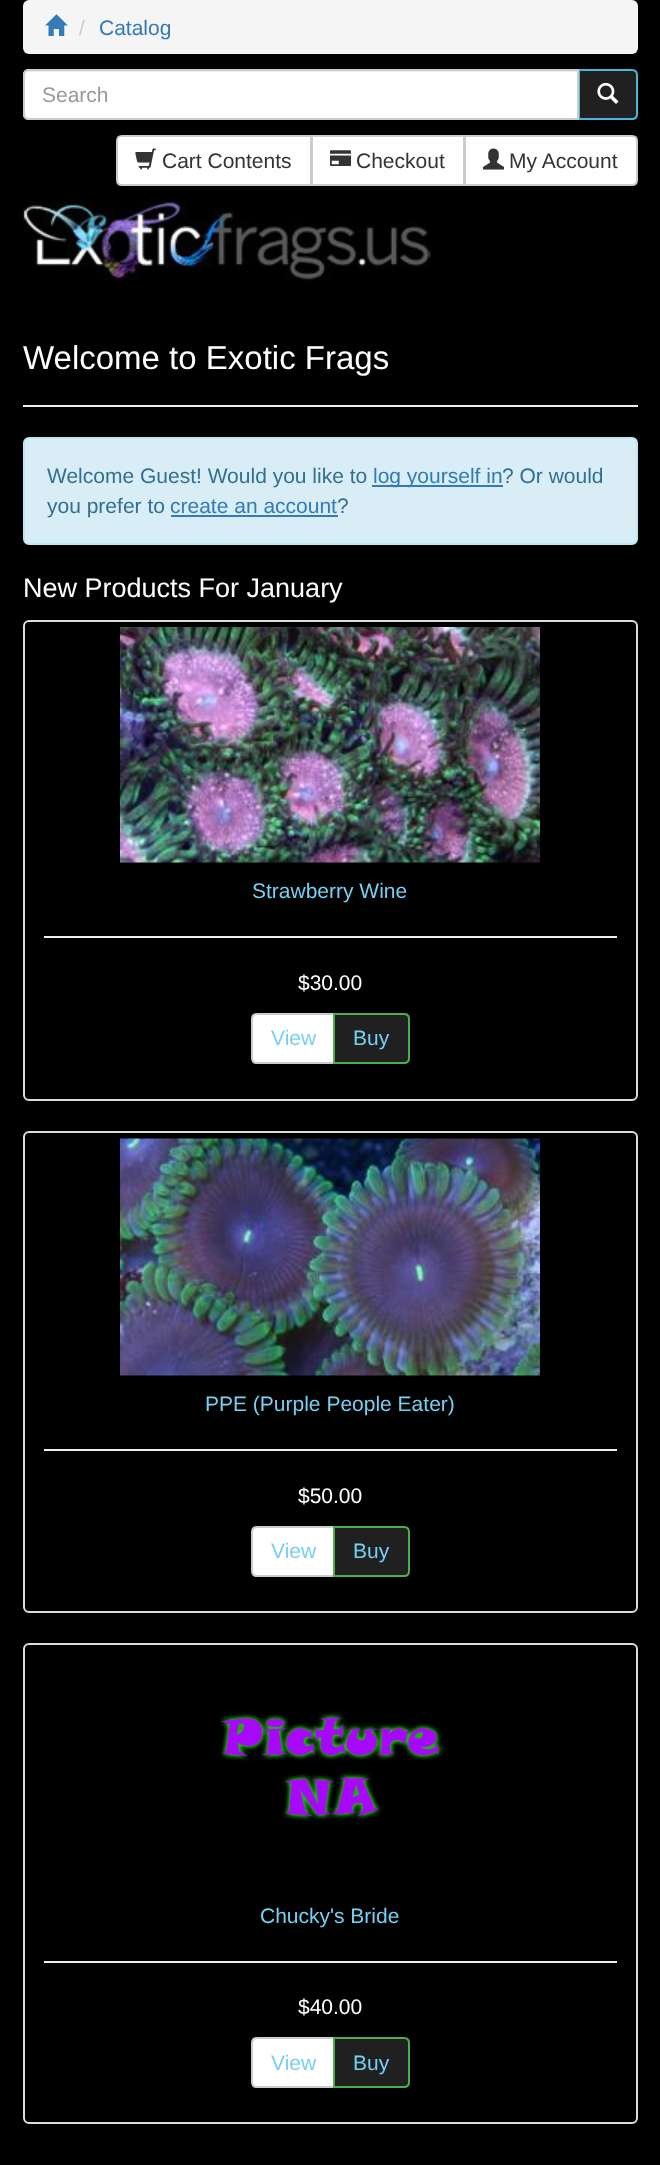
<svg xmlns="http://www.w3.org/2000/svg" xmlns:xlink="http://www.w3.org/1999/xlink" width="660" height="2165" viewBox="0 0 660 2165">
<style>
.cls-1{font:21px Liberation Sans;fill:#cccccc}
.cls-2{font:21px Liberation Sans;fill:#337ab7}
.cls-3{font:21px Liberation Sans;fill:#999999}
.cls-4{font:21px Liberation Sans;fill:#333333}
.cls-5{font:33px Liberation Sans;fill:#ffffff}
.cls-6{font:21px Liberation Sans;fill:#31708f}
.cls-7{font:27px Liberation Sans;fill:#ffffff}
.cls-8{font:21px Liberation Sans;fill:#76d0f3}
.cls-9{font:21px Liberation Sans;fill:#ffffff}
</style>
<rect width="100%" height="100%" fill="#000000"/>
<rect fill="#f5f5f5" x="23" y="0" width="615" height="54" rx="6"/>
<image xlink:href="image0.png" x="45" y="14" width="23" height="22"/>
<path fill="#202020" stroke="#46b8da" stroke-width="2" d="M579 70H632C635 70 637 72 637 75V114C637 117 635 119 632 119H579Z"/>
<path fill="#ffffff" d="M29 69H579V120H29C25.5 120 23 117.5 23 114V75C23 71.5 25.5 69 29 69Z"/>
<path fill="#ececec" d="M28 72H578V71H29C26 71 24 73 24 76C24 74 26 72 28 72Z"/>
<path fill="none" stroke="#cccccc" stroke-width="2" d="M29 70H578V119H29C26 119 24 117 24 114V75C24 72 26 70 29 70Z"/>
<image xlink:href="image1.png" x="597" y="82" width="22" height="22"/>
<path fill="#ffffff" stroke="#cccccc" stroke-width="2" d="M122 136H311V185H122C119 185 117 183 117 180V141C117 138 119 136 122 136Z"/>
<image xlink:href="image2.png" x="135" y="148" width="21" height="22"/>
<rect fill="#ffffff" stroke="#cccccc" stroke-width="2" x="312" y="136" width="152" height="49"/>
<image xlink:href="image3.png" x="330" y="150" width="21" height="16"/>
<path fill="#ffffff" stroke="#cccccc" stroke-width="2" d="M465 136H632C635 136 637 138 637 141V180C637 183 635 185 632 185H465Z"/>
<image xlink:href="image4.png" x="483" y="148" width="21" height="22"/>
<image xlink:href="image5.png" x="23" y="201" width="408" height="80"/>
<rect fill="#eeeeee" x="23" y="405" width="615" height="2"/>
<rect fill="#d9edf7" stroke="#bce8f1" stroke-width="2" x="24" y="438" width="613" height="106" rx="5"/>
<rect fill="#337ab7" x="372" y="485" width="131" height="2"/>
<rect fill="#337ab7" x="171" y="515" width="167" height="2"/>
<rect fill="none" stroke="#dddddd" stroke-width="2" x="24" y="621" width="613" height="479" rx="5"/>
<image xlink:href="image6.png" x="120" y="627" width="420" height="236"/>
<rect fill="#eeeeee" x="44" y="936" width="573" height="2"/>
<path fill="#ffffff" stroke="#cccccc" stroke-width="2" d="M257 1014H334V1063H257C254 1063 252 1061 252 1058V1019C252 1016 254 1014 257 1014Z"/>
<path fill="#202020" stroke="#4cae4c" stroke-width="2" d="M334 1014H404C407 1014 409 1016 409 1019V1058C409 1061 407 1063 404 1063H334Z"/>
<rect fill="none" stroke="#dddddd" stroke-width="2" x="24" y="1132" width="613" height="480" rx="5"/>
<image xlink:href="image7.png" x="120" y="1138" width="420" height="238"/>
<rect fill="#eeeeee" x="44" y="1449" width="573" height="2"/>
<path fill="#ffffff" stroke="#cccccc" stroke-width="2" d="M257 1527H334V1576H257C254 1576 252 1574 252 1571V1532C252 1529 254 1527 257 1527Z"/>
<path fill="#202020" stroke="#4cae4c" stroke-width="2" d="M334 1527H404C407 1527 409 1529 409 1532V1571C409 1574 407 1576 404 1576H334Z"/>
<rect fill="none" stroke="#dddddd" stroke-width="2" x="24" y="1644" width="613" height="479" rx="5"/>
<image xlink:href="image8.png" x="219" y="1712" width="225" height="109"/>
<rect fill="#eeeeee" x="44" y="1961" width="573" height="2"/>
<path fill="#ffffff" stroke="#cccccc" stroke-width="2" d="M257 2038H334V2087H257C254 2087 252 2085 252 2082V2043C252 2040 254 2038 257 2038Z"/>
<path fill="#202020" stroke="#4cae4c" stroke-width="2" d="M334 2038H404C407 2038 409 2040 409 2043V2082C409 2085 407 2087 404 2087H334Z"/>
<text class="cls-1" x="79" y="35">/</text>
<text class="cls-2" x="99" y="35">Catalog</text>
<text class="cls-3" x="42" y="102">Search</text>
<text class="cls-4" x="162" y="168">Cart Contents</text>
<text class="cls-4" x="356" y="168">Checkout</text>
<text class="cls-4" x="509" y="168">My Account</text>
<text class="cls-5" x="23" y="369">Welcome to Exotic Frags</text>
<text class="cls-6" x="47" y="483">Welcome Guest! Would you like to</text>
<text class="cls-2" x="373" y="483">log yourself in</text>
<text class="cls-6" x="502" y="483">? Or would</text>
<text class="cls-6" x="47" y="513">you prefer to</text>
<text class="cls-2" x="170" y="513">create an account</text>
<text class="cls-6" x="337" y="513">?</text>
<text class="cls-7" x="23" y="597">New Products For January</text>
<text class="cls-8" x="252" y="898">Strawberry Wine</text>
<text class="cls-9" x="298" y="990">$30.00</text>
<text class="cls-8" x="271" y="1045">View</text>
<text class="cls-8" x="353" y="1045">Buy</text>
<text class="cls-8" x="205" y="1411">PPE (Purple People Eater)</text>
<text class="cls-9" x="298" y="1503">$50.00</text>
<text class="cls-8" x="271" y="1558">View</text>
<text class="cls-8" x="353" y="1558">Buy</text>
<text class="cls-8" x="260" y="1923">Chucky's Bride</text>
<text class="cls-9" x="298" y="2014">$40.00</text>
<text class="cls-8" x="271" y="2070">View</text>
<text class="cls-8" x="353" y="2070">Buy</text>
</svg>
